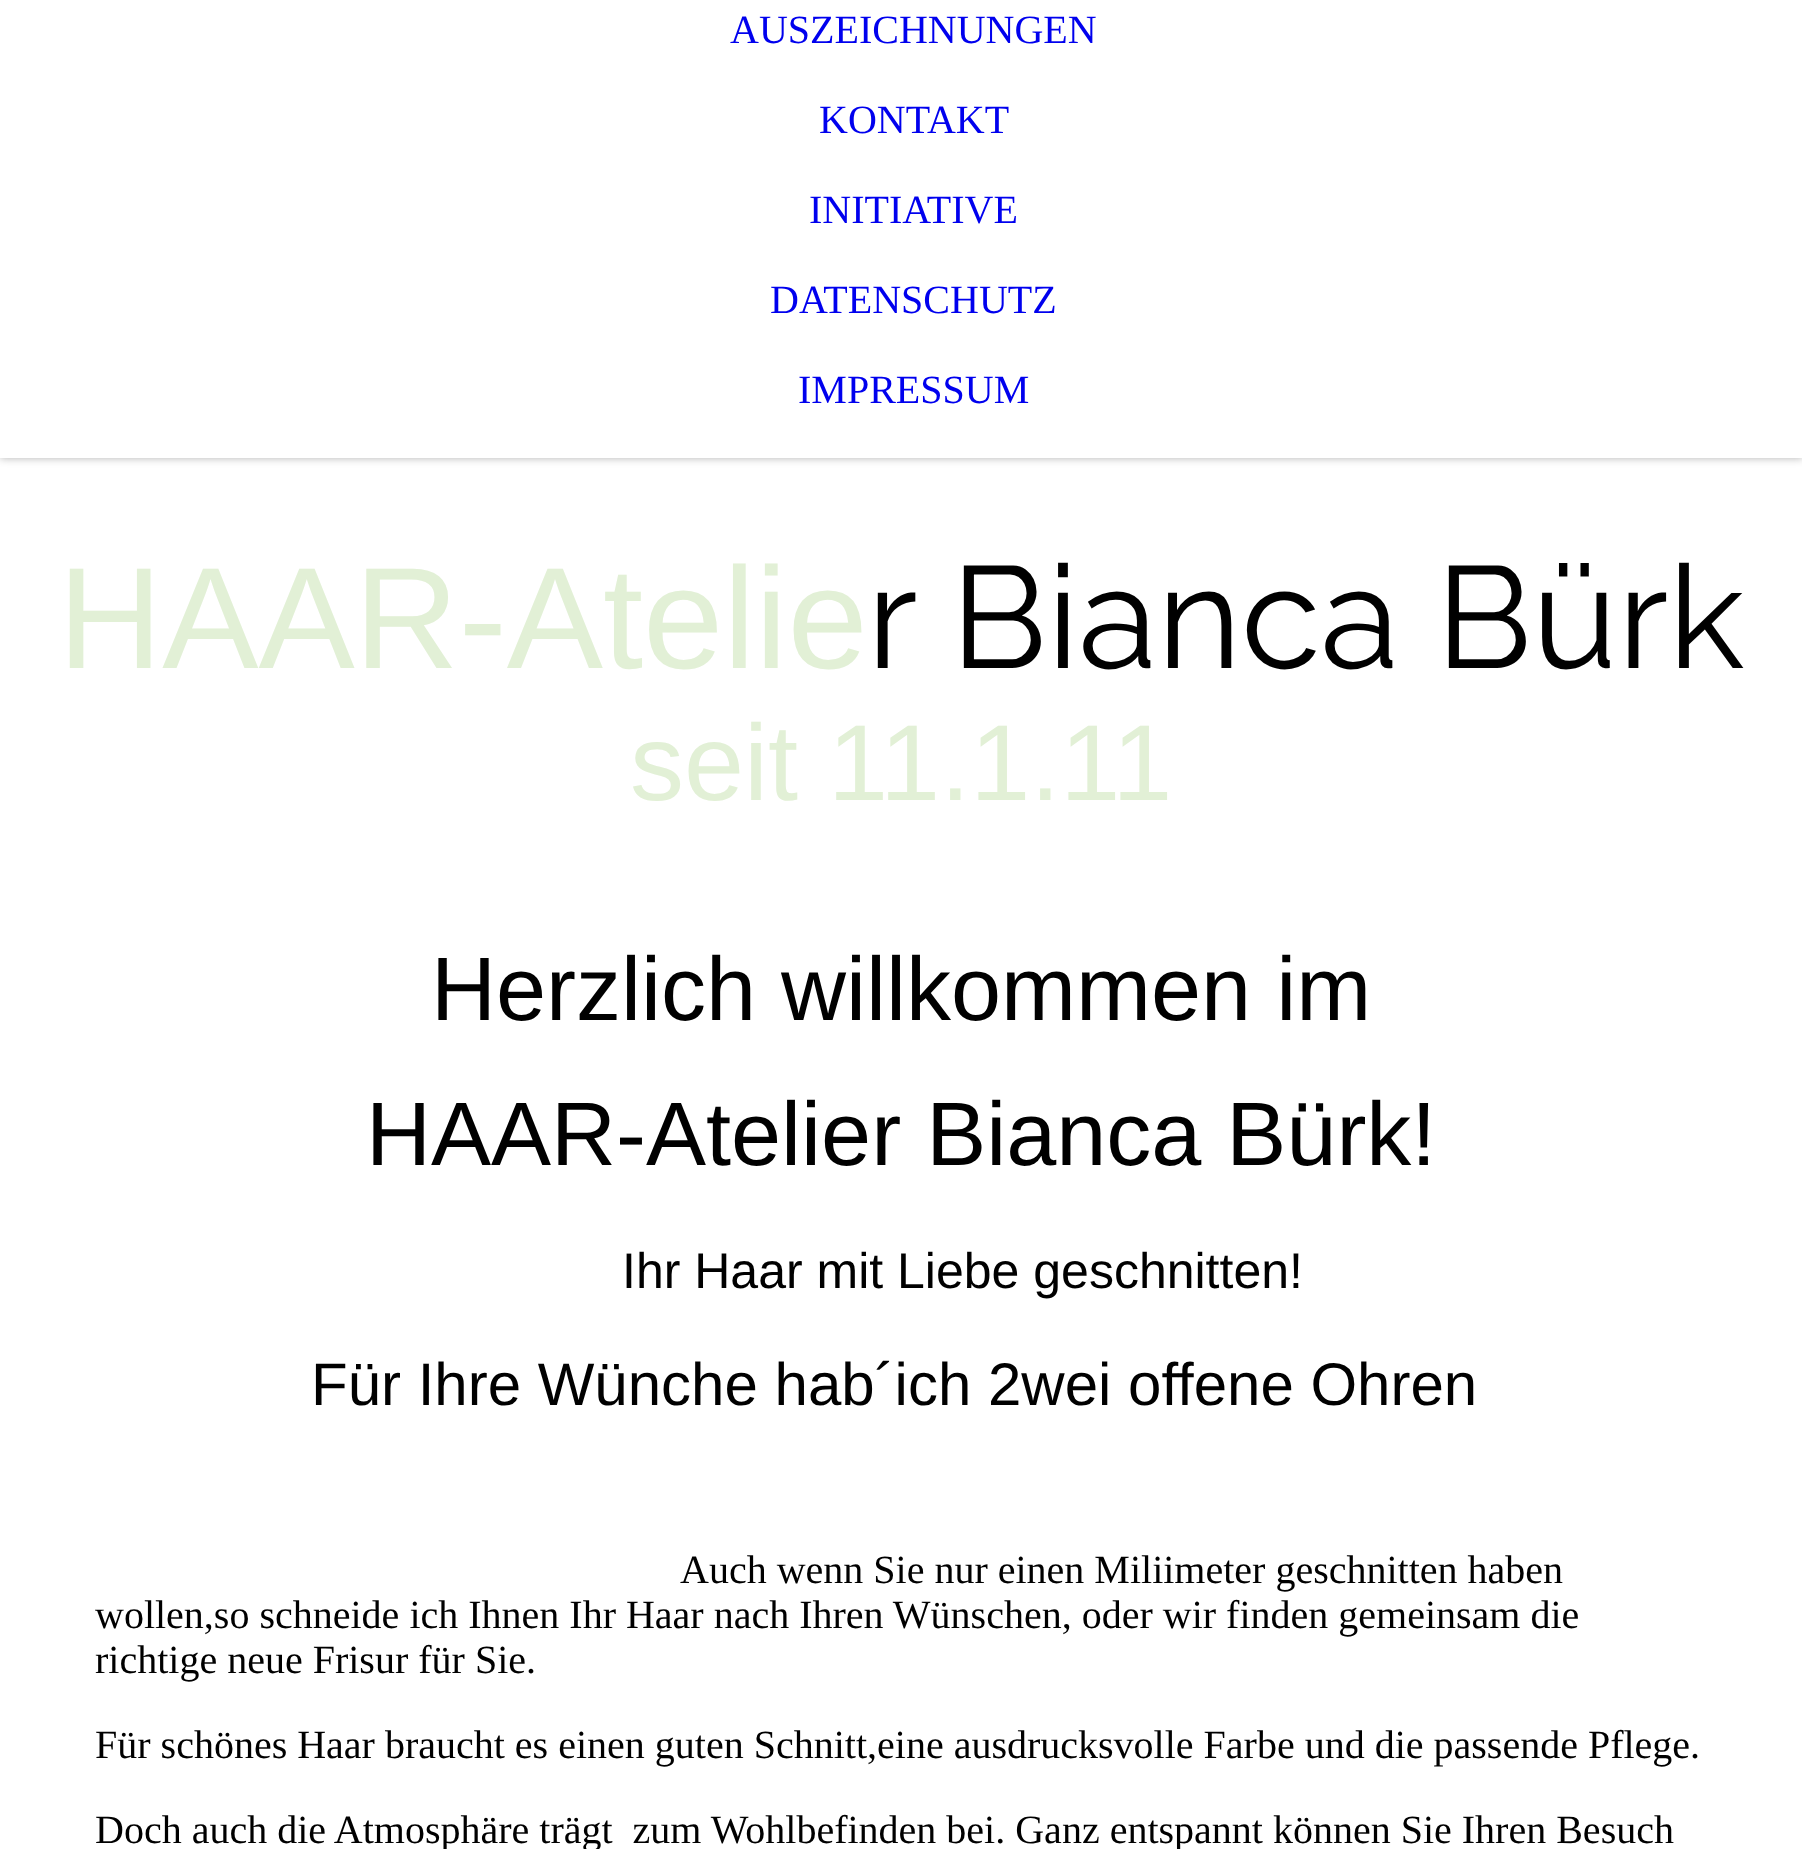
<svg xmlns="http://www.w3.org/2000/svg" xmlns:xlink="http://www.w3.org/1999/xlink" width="1802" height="1849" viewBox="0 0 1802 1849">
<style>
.cls-1{font:40px Liberation Serif;fill:#0000ee}
.cls-2{font:144.25px Liberation Sans;fill:#e2f0d6}
.cls-3{font:144.25px Raleway;fill:#000000}
.cls-4{font:108px Liberation Sans;fill:#e2f0d6}
.cls-5{font:90px Liberation Sans;fill:#000000}
.cls-6{font:50px Liberation Sans;fill:#000000}
.cls-7{font:60px Liberation Sans;fill:#000000}
.cls-8{font:40px Liberation Serif;fill:#000000}
</style>
<defs>
<clipPath id="clip1"><path d="M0 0H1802V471H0ZM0-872H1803V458H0Z" clip-rule="evenodd"/></clipPath>
</defs>
<rect width="100%" height="100%" fill="#ffffff"/>
<g clip-path="url(#clip1)">
<rect fill="#000000" fill-opacity="0.3" filter="blur(4px)" x="0" y="-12" width="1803" height="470"/>
</g>
<text class="cls-1" x="730" y="43">AUSZEICHNUNGEN</text>
<text class="cls-1" x="819" y="133">KONTAKT</text>
<text class="cls-1" x="809" y="223">INITIATIVE</text>
<text class="cls-1" x="770" y="313">DATENSCHUTZ</text>
<text class="cls-1" x="798" y="403">IMPRESSUM</text>
<text class="cls-2" x="58" y="668">HAAR-Atelie</text>
<text class="cls-3" x="867" y="668">r Bianca Bürk</text>
<text class="cls-4" x="630" y="800">seit 11.1.11</text>
<text class="cls-5" x="431" y="1020">Herzlich willkommen im</text>
<text class="cls-5" x="366" y="1165">HAAR-Atelier Bianca Bürk!</text>
<text class="cls-6" x="622" y="1288">Ihr Haar mit Liebe geschnitten!</text>
<text class="cls-7" x="311" y="1405">Für Ihre Wünche hab´ich 2wei offene Ohren</text>
<text class="cls-8" x="680" y="1583">Auch wenn Sie nur einen Miliimeter geschnitten haben</text>
<text class="cls-8"><tspan x="95" y="1628">wollen,so schneide ich Ihnen Ihr Haar nach Ihren Wünschen, oder wir finden gemeinsam die</tspan><tspan x="95" y="1673">richtige neue Frisur für Sie.</tspan></text>
<text class="cls-8" x="95" y="1758">Für schönes Haar braucht es einen guten Schnitt,eine ausdrucksvolle Farbe und die passende Pflege.</text>
<text class="cls-8" xml:space="preserve" x="95" y="1843">Doch auch die Atmosphäre trägt  zum Wohlbefinden bei. Ganz entspannt können Sie Ihren Besuch</text>
</svg>
